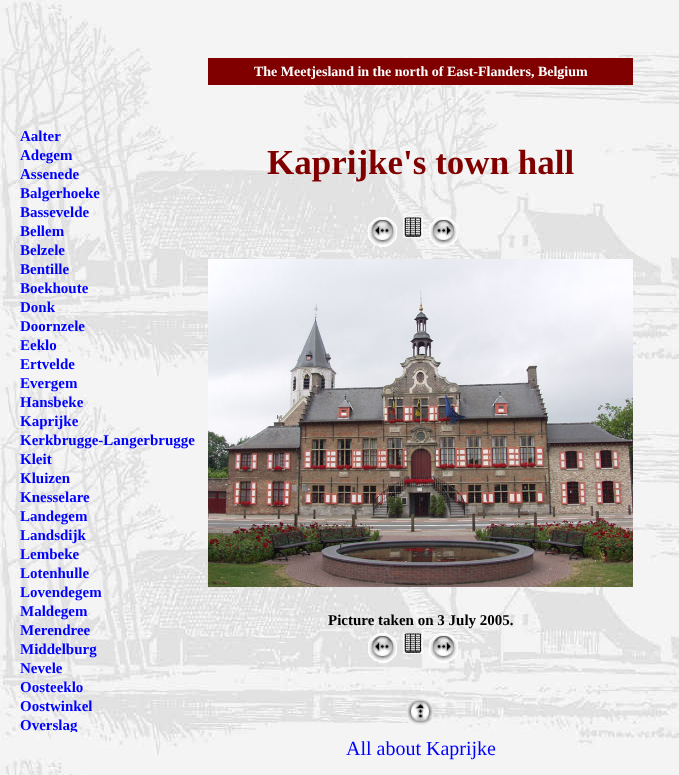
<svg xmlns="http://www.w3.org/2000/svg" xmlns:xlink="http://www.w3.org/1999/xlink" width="679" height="775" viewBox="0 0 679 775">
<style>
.cls-1{font:bold 15px Liberation Serif;fill:#0000ff}
.cls-2{font:bold 14px Liberation Serif;fill:#ffffff}
.cls-3{font:bold 35px Liberation Serif;fill:#800000}
.cls-4{font:bold 15px Liberation Serif;fill:#000000}
.cls-5{font:20px Liberation Serif;fill:#0000ff}
</style>
<defs>
<clipPath id="clip1"><rect x="20" y="112" width="175" height="620"/></clipPath>
</defs>
<rect width="100%" height="100%" fill="#ffffff"/>
<image xlink:href="image0.png" x="0" y="0" width="679" height="775"/>
<rect fill="#800000" x="208" y="58" width="425" height="27"/>
<image xlink:href="image1.png" x="368" y="217" width="29" height="30"/>
<image xlink:href="image2.png" x="403" y="217" width="20" height="21"/>
<image xlink:href="image3.png" x="429" y="217" width="29" height="30"/>
<image xlink:href="image4.png" x="208" y="259" width="425" height="328"/>
<image xlink:href="image5.png" x="368" y="633" width="29" height="30"/>
<image xlink:href="image2.png" x="403" y="633" width="20" height="21"/>
<image xlink:href="image6.png" x="429" y="633" width="29" height="30"/>
<image xlink:href="image7.png" x="407" y="699" width="27" height="26"/>
<text class="cls-1"><tspan x="20" y="141">Aalter</tspan><tspan x="20" y="160">Adegem</tspan><tspan x="20" y="179">Assenede</tspan><tspan x="20" y="198">Balgerhoeke</tspan><tspan x="20" y="217">Bassevelde</tspan><tspan x="20" y="236">Bellem</tspan><tspan x="20" y="255">Belzele</tspan><tspan x="20" y="274">Bentille</tspan><tspan x="20" y="293">Boekhoute</tspan><tspan x="20" y="312">Donk</tspan><tspan x="20" y="331">Doornzele</tspan><tspan x="20" y="350">Eeklo</tspan><tspan x="20" y="369">Ertvelde</tspan><tspan x="20" y="388">Evergem</tspan><tspan x="20" y="407">Hansbeke</tspan><tspan x="20" y="426">Kaprijke</tspan><tspan x="20" y="445">Kerkbrugge-Langerbrugge</tspan><tspan x="20" y="464">Kleit</tspan><tspan x="20" y="483">Kluizen</tspan><tspan x="20" y="502">Knesselare</tspan><tspan x="20" y="521">Landegem</tspan><tspan x="20" y="540">Landsdijk</tspan><tspan x="20" y="559">Lembeke</tspan><tspan x="20" y="578">Lotenhulle</tspan><tspan x="20" y="597">Lovendegem</tspan><tspan x="20" y="616">Maldegem</tspan><tspan x="20" y="635">Merendree</tspan><tspan x="20" y="654">Middelburg</tspan><tspan x="20" y="673">Nevele</tspan><tspan x="20" y="692">Oosteeklo</tspan><tspan x="20" y="711">Oostwinkel</tspan></text>
<g clip-path="url(#clip1)">
<text class="cls-1" x="20" y="730">Overslag</text>
</g>
<text class="cls-2" x="254" y="76">The Meetjesland in the north of East-Flanders, Belgium</text>
<text class="cls-3" x="267" y="174">Kaprijke's town hall</text>
<text class="cls-4" x="328" y="625">Picture taken on 3 July 2005.</text>
<text class="cls-5" x="346" y="755">All about Kaprijke</text>
</svg>
